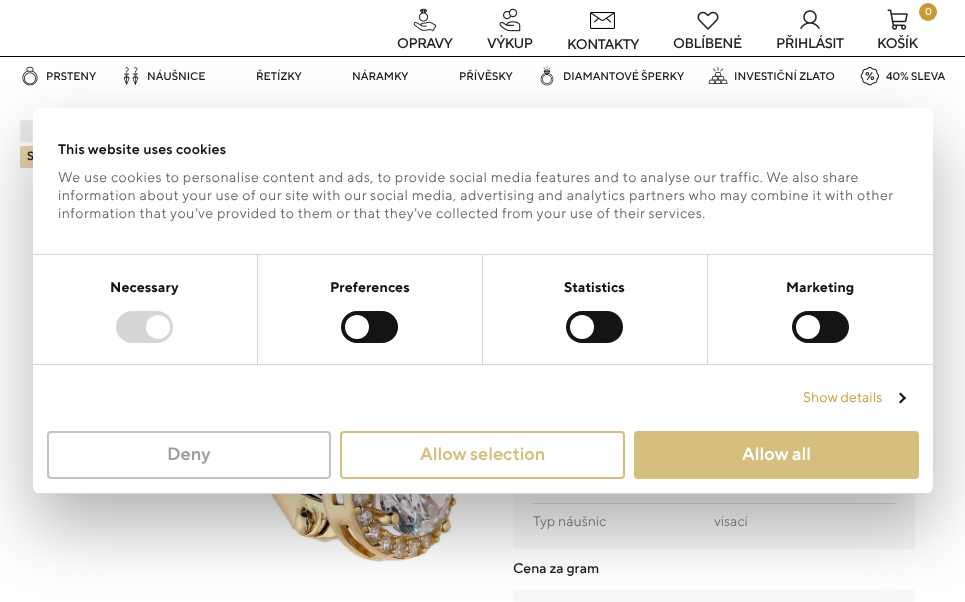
<svg xmlns="http://www.w3.org/2000/svg" xmlns:xlink="http://www.w3.org/1999/xlink" width="965" height="602" viewBox="0 0 965 602">
<style>
.cls-1{font:italic 500 14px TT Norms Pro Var;letter-spacing:-0.5px;fill:#212121}
.cls-2{font:italic 500 10px TT Norms Pro Var;fill:#ffffff}
.cls-3{font:italic 500 11px TT Norms Pro Var;fill:#1a1a1a}
.cls-4{font:italic 600 12px TT Norms Pro Var;fill:#1a1a1a}
.cls-5{font:italic 14px TT Norms Pro Var;fill:#707070}
.cls-6{font:italic 500 14px TT Norms Pro Var;fill:#1a1a1a}
.cls-7{font:italic 600 14px TT Norms Pro Var;letter-spacing:0.25px;fill:#141414}
.cls-8{font:italic 14px TT Norms Pro Var;letter-spacing:0.5px;fill:#61676d}
.cls-9{font:14px Liberation Sans;letter-spacing:0.5px;fill:#61676d}
.cls-10{font:italic bold 14px TT Norms Pro Var;letter-spacing:0.1px;fill:#141414}
.cls-11{font:italic 14px TT Norms Pro Var;letter-spacing:0.1px;fill:#c89937}
.cls-12{font:italic 600 18px TT Norms Pro Var;fill:#9da0a1}
.cls-13{font:italic 600 18px TT Norms Pro Var;fill:#d6be7e}
.cls-14{font:italic 600 18px TT Norms Pro Var;fill:#ffffff}
</style>
<defs>
<clipPath id="clip1"><rect x="33" y="108" width="900" height="386" rx="8"/></clipPath>
</defs>
<rect width="100%" height="100%" fill="#ffffff"/>
<image xlink:href="image0.png" x="413" y="8" width="24" height="24"/>
<image xlink:href="image1.png" x="499" y="8" width="22" height="24"/>
<image xlink:href="image2.png" x="590" y="12" width="25" height="17"/>
<image xlink:href="image3.png" x="697" y="11" width="22" height="19"/>
<image xlink:href="image4.png" x="800" y="10" width="20" height="19"/>
<image xlink:href="image5.png" x="887" y="9" width="21" height="21"/>
<circle fill="#c89937" cx="928" cy="12" r="9"/>
<rect fill="#000000" x="0" y="56" width="965" height="1"/>
<image xlink:href="image6.png" x="22" y="66" width="16" height="20"/>
<image xlink:href="image7.png" x="123" y="67" width="16" height="19"/>
<image xlink:href="image8.png" x="540" y="66" width="14" height="20"/>
<image xlink:href="image9.png" x="708" y="66" width="20" height="18"/>
<image xlink:href="image10.png" x="860" y="66" width="19" height="20"/>
<rect fill="#ebebeb" x="20" y="120" width="43" height="22" rx="2"/>
<rect fill="#e8d4ac" x="20" y="146" width="180" height="22" rx="2"/>
<rect fill="#f7f8f9" x="513" y="494" width="402" height="55"/>
<rect fill="#d9dadb" x="533" y="503" width="362" height="1"/>
<rect fill="#bfc0c1" x="713" y="503" width="1" height="1"/>
<rect fill="#f7f8f9" x="513" y="589" width="402" height="13"/>
<image xlink:href="image11.png" x="37" y="492" width="422" height="70"/>
<rect fill="#000000" fill-opacity="0.3" filter="blur(34px)" x="33" y="140" width="900" height="386" rx="8"/>
<text class="cls-1" x="397" y="48">OPRAVY</text>
<text class="cls-1" x="487" y="48">VÝKUP</text>
<text class="cls-1" x="567" y="49">KONTAKTY</text>
<text class="cls-1" x="673" y="48">OBLÍBENÉ</text>
<text class="cls-1" x="776" y="48">PŘIHLÁSIT</text>
<text class="cls-2" x="925" y="15">0</text>
<text class="cls-1" x="877" y="48">KOŠÍK</text>
<text class="cls-3" x="46" y="80">PRSTENY</text>
<text class="cls-3" x="147" y="80">NÁUŠNICE</text>
<text class="cls-3" x="256" y="80">ŘETÍZKY</text>
<text class="cls-3" x="352" y="80">NÁRAMKY</text>
<text class="cls-3" x="459" y="80">PŘÍVĚSKY</text>
<text class="cls-3" x="563" y="80">DIAMANTOVÉ ŠPERKY</text>
<text class="cls-3" x="734" y="80">INVESTIČNÍ ZLATO</text>
<text class="cls-3" x="886" y="80">40% SLEVA</text>
<text class="cls-4" x="27" y="160">S</text>
<text class="cls-5" x="533" y="526">Typ náušnic</text>
<text class="cls-5" x="714" y="526">visací</text>
<text class="cls-6" x="513" y="573">Cena za gram</text>
<rect fill="#ffffff" x="33" y="108" width="900" height="386" rx="8"/>
<rect fill="#d6d6d6" x="33" y="254" width="900" height="1"/>
<text class="cls-7" x="58" y="154">This website uses cookies</text>
<text class="cls-8"><tspan x="58" y="182">We use cookies to personalise content and ads, to provide social media features and to analyse our traffic. We also share</tspan><tspan x="58" y="200">information about your use of our site with our social media, advertising and analytics partners who may combine it with other</tspan><tspan x="58" y="218">information that you ve provided to them or that they ve collected from your use of their services.</tspan></text>
<text class="cls-9" x="195" y="218">’</text>
<text class="cls-9" x="414" y="218">’</text>
<rect fill="#d6d6d6" x="33" y="364" width="900" height="1"/>
<rect fill="#d6d6d6" x="257" y="255" width="1" height="109"/>
<text class="cls-10" x="110" y="292">Necessary</text>
<rect fill="#d6d6d6" x="116" y="311" width="57" height="32" rx="16"/>
<circle fill="#ffffff" cx="158" cy="327" r="12"/>
<rect fill="#d6d6d6" x="482" y="255" width="1" height="109"/>
<text class="cls-10" x="330" y="292">Preferences</text>
<rect fill="#141414" x="341" y="311" width="57" height="32" rx="16"/>
<circle fill="#ffffff" cx="357" cy="327" r="12"/>
<rect fill="#d6d6d6" x="707" y="255" width="1" height="109"/>
<text class="cls-10" x="564" y="292">Statistics</text>
<rect fill="#141414" x="566" y="311" width="57" height="32" rx="16"/>
<circle fill="#ffffff" cx="582" cy="327" r="12"/>
<text class="cls-10" x="786" y="292">Marketing</text>
<rect fill="#141414" x="792" y="311" width="57" height="32" rx="16"/>
<circle fill="#ffffff" cx="808" cy="327" r="12"/>
<text class="cls-11" x="803" y="402">Show details</text>
<path fill="#141414" d="M900.5 392.5L906 398L904.5 399.5L899 394Z"/>
<path fill="#141414" d="M904.5 396.5L906 398L900.5 403.5L899 402Z"/>
<g clip-path="url(#clip1)">
<rect fill="#d6d6d6" x="33" y="493" width="900" height="1"/>
</g>
<rect fill="none" stroke="#c2c2c2" stroke-width="2" x="48" y="432" width="282" height="46" rx="3"/>
<text class="cls-12" x="167" y="460">Deny</text>
<rect fill="none" stroke="#d6be7e" stroke-width="2" x="341" y="432" width="283" height="46" rx="3"/>
<text class="cls-13" x="420" y="460">Allow selection</text>
<rect fill="#d6be7e" stroke="#d6be7e" stroke-width="2" x="635" y="432" width="283" height="46" rx="3"/>
<text class="cls-14" x="742" y="460">Allow all</text>
</svg>
